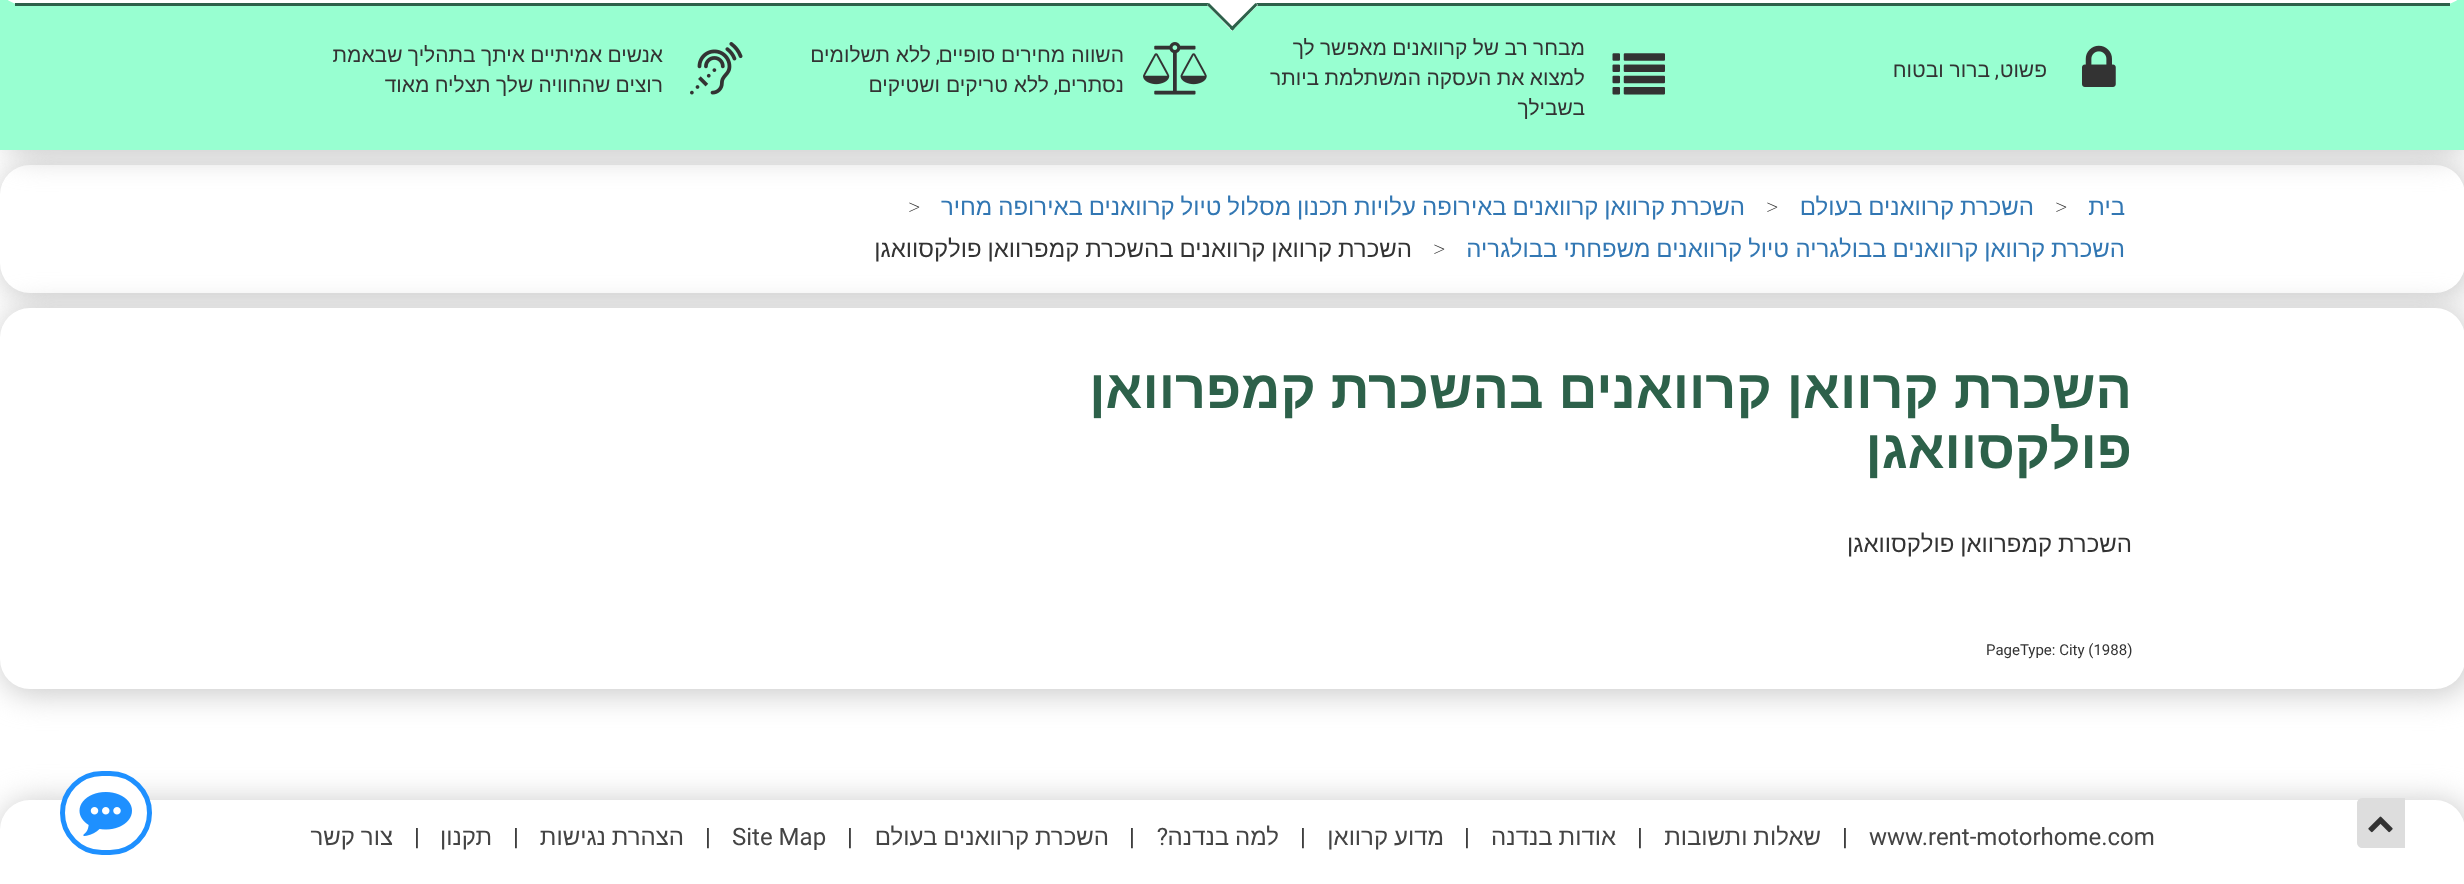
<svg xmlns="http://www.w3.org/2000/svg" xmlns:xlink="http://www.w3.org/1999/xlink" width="2464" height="884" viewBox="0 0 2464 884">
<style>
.cls-1{font:21px Liberation Sans;direction:rtl;fill:#333333}
.cls-2{font:21px Roboto;direction:rtl;fill:#333333}
.cls-3{font:24px Liberation Sans;direction:rtl;fill:#3277b3}
.cls-4{font:100 24px Roboto;fill:#333333}
.cls-5{font:24px Liberation Sans;direction:rtl;fill:#333333}
.cls-6{font:bold 54px Liberation Sans;direction:rtl;fill:#2d614a}
.cls-7{font:15px Roboto;fill:#333333}
.cls-8{font:24px Roboto;fill:#444444}
.cls-9{font:24px Roboto;fill:#333333}
.cls-10{font:24px Liberation Sans;direction:rtl;fill:#444444}
.cls-11{font:24px Roboto;direction:rtl;fill:#444444}
</style>
<rect width="100%" height="100%" fill="#ffffff"/>
<rect fill="#cccccc" filter="blur(15px)" x="0" y="165" width="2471" height="134" rx="33"/>
<rect fill="#ffffff" x="0" y="165" width="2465" height="128" rx="30"/>
<rect fill="#cccccc" filter="blur(15px)" x="0" y="-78" width="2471" height="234" rx="33"/>
<rect fill="#98ffd1" x="0" y="0" width="2464" height="150"/>
<rect fill="#ffffff" x="0" y="-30" width="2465" height="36" rx="30"/>
<rect fill="#2d614a" x="15" y="3" width="2435" height="3"/>
<path fill="#ffffff" d="M1232-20L1258 5L1232 31L1207 5Z"/>
<path fill="#2d614a" d="M1255.5 3L1257.5 5L1232.5 30.5L1230 28.5Z"/>
<path fill="#2d614a" d="M1209 3L1234.5 28.5L1232.5 30.5L1207 5Z"/>
<image xlink:href="image0.png" x="2082" y="45" width="34" height="42"/>
<image xlink:href="image1.png" x="1612" y="53" width="53" height="42"/>
<image xlink:href="image2.png" x="1143" y="42" width="64" height="53"/>
<image xlink:href="image3.png" x="690" y="42" width="53" height="53"/>
<rect fill="#cccccc" filter="blur(15px)" x="0" y="308" width="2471" height="387" rx="33"/>
<rect fill="#ffffff" x="0" y="308" width="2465" height="381" rx="30"/>
<rect fill="#cccccc" filter="blur(15px)" x="0" y="800" width="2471" height="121" rx="33"/>
<rect fill="#ffffff" x="0" y="800" width="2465" height="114" rx="30"/>
<path fill="#dddddd" stroke="#dddddd" stroke-width="2" d="M2362 799H2404V847H2362C2360 847 2358 845 2358 843V803C2358 801 2360 799 2362 799Z"/>
<image xlink:href="image4.png" x="2368" y="816" width="25" height="17"/>
<rect fill="#ffffff" stroke="#1e90ff" stroke-width="5" x="62.5" y="773.5" width="87" height="79" rx="39.5"/>
<image xlink:href="image5.png" x="79" y="792" width="53" height="44"/>
<text class="cls-1" x="2047" y="77">פשוט</text>
<text class="cls-2" x="1999" y="77">,</text>
<text class="cls-1" x="1990" y="77">ברור ובטוח</text>
<text class="cls-1"><tspan x="1585" y="55" word-spacing="-0.5">מבחר רב של קרוואנים מאפשר לך</tspan><tspan x="1585" y="85" word-spacing="-0.5">למצוא את העסקה המשתלמת ביותר</tspan><tspan x="1585" y="115">בשבילך</tspan></text>
<text class="cls-1" x="1124" y="62">השווה מחירים סופיים</text>
<text class="cls-2" x="940" y="62">,</text>
<text class="cls-1" x="931" y="62">ללא תשלומים</text>
<text class="cls-1" x="1124" y="92">נסתרים</text>
<text class="cls-2" x="1058" y="92">,</text>
<text class="cls-1" x="1049" y="92">ללא טריקים ושטיקים</text>
<text class="cls-1"><tspan x="663" y="62" word-spacing="-0.5">אנשים אמיתיים איתך בתהליך שבאמת</tspan><tspan x="663" y="92" word-spacing="-0.5">רוצים שהחוויה שלך תצליח מאוד</tspan></text>
<text class="cls-3" x="2125" y="215">בית</text>
<text class="cls-4" x="2055" y="215">&gt;</text>
<text class="cls-3" x="2034" y="215" word-spacing="-0.75">השכרת קרוואנים בעולם</text>
<text class="cls-4" x="1766" y="215">&gt;</text>
<text class="cls-3" x="1745" y="215" word-spacing="-0.75">השכרת קרוואן קרוואנים באירופה</text>
<text class="cls-3" x="1416" y="215" word-spacing="-0.75">עלויות תכנון מסלול טיול קרוואנים באירופה מחיר</text>
<text class="cls-4" x="908" y="215">&gt;</text>
<text class="cls-3" x="2125" y="257" word-spacing="-0.75">השכרת קרוואן קרוואנים בבולגריה</text>
<text class="cls-3" x="1789" y="257" word-spacing="-0.75">טיול קרוואנים משפחתי בבולגריה</text>
<text class="cls-4" x="1433" y="257">&gt;</text>
<text class="cls-5" x="1412" y="257" word-spacing="-0.75">השכרת קרוואן קרוואנים בהשכרת קמפרוואן פולקסוואגן</text>
<text class="cls-6"><tspan x="2132" y="408">השכרת קרוואן קרוואנים בהשכרת קמפרוואן</tspan><tspan x="2132" y="468">פולקסוואגן</tspan></text>
<text class="cls-5" x="2132" y="552" word-spacing="-0.75">השכרת קמפרוואן פולקסוואגן</text>
<text class="cls-7" x="1986" y="655">PageType: City (1988)</text>
<text class="cls-8" x="1869" y="845">www.rent-motorhome.com</text>
<text class="cls-9" x="1842" y="845">|</text>
<text class="cls-10" x="1821" y="845" word-spacing="-0.75">שאלות ותשובות</text>
<text class="cls-9" x="1637" y="845">|</text>
<text class="cls-10" x="1616" y="845" word-spacing="-0.75">אודות בנדנה</text>
<text class="cls-9" x="1464" y="845">|</text>
<text class="cls-10" x="1444" y="845" word-spacing="-0.75">מדוע קרוואן</text>
<text class="cls-9" x="1300" y="845">|</text>
<text class="cls-10" x="1279" y="845" word-spacing="-0.75">למה בנדנה</text>
<text class="cls-11" x="1168" y="845">?</text>
<text class="cls-9" x="1129" y="845">|</text>
<text class="cls-10" x="1109" y="845" word-spacing="-0.75">השכרת קרוואנים בעולם</text>
<text class="cls-9" x="847" y="845">|</text>
<text class="cls-8" x="732" y="845">Site Map</text>
<text class="cls-9" x="705" y="845">|</text>
<text class="cls-10" x="684" y="845" word-spacing="-0.75">הצהרת נגישות</text>
<text class="cls-9" x="513" y="845">|</text>
<text class="cls-10" x="492" y="845">תקנון</text>
<text class="cls-9" x="414" y="845">|</text>
<text class="cls-10" x="393" y="845" word-spacing="-0.75">צור קשר</text>
</svg>
